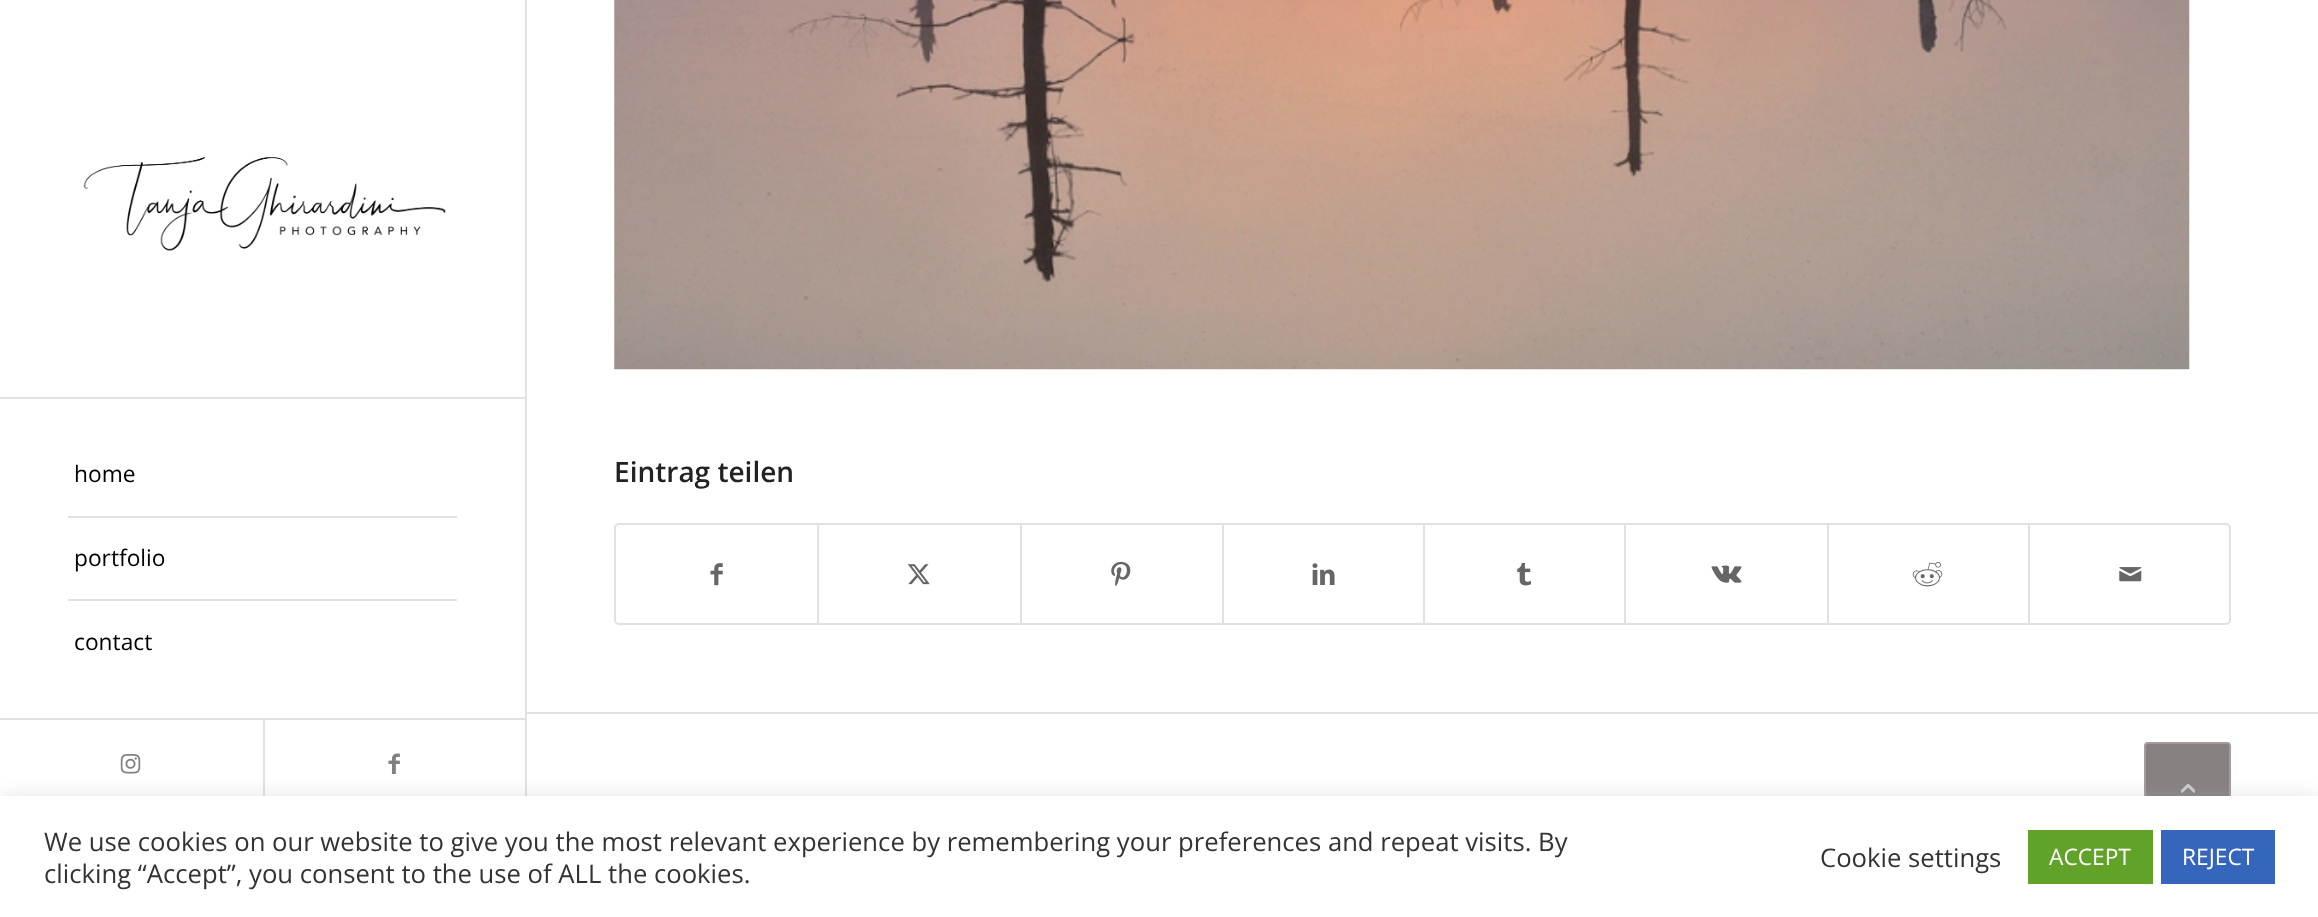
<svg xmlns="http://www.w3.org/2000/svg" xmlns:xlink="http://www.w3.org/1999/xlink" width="2318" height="917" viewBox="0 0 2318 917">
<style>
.cls-1{font:22.75px Open Sans;fill:#000000}
.cls-2{font:600 28px Open Sans;fill:#222222}
.cls-3{font:25.67px Open Sans;fill:#333333}
.cls-4{font:22.75px Open Sans;fill:#ffffff}
</style>
<rect width="100%" height="100%" fill="#ffffff"/>
<rect fill="#e1e1e1" x="0" y="397" width="525" height="2"/>
<image xlink:href="image0.png" x="83" y="157" width="363" height="94"/>
<rect fill="#e1e1e1" x="68" y="516" width="389" height="2"/>
<rect fill="#e1e1e1" x="68" y="599" width="389" height="2"/>
<rect fill="#e1e1e1" x="0" y="718" width="525" height="2"/>
<image xlink:href="image1.png" x="120" y="754" width="21" height="20"/>
<rect fill="#e1e1e1" x="263" y="719" width="2" height="77"/>
<image xlink:href="image2.png" x="388" y="753" width="12" height="21"/>
<rect fill="#e1e1e1" x="525" y="0" width="2" height="796"/>
<image xlink:href="image3.png" x="614" y="0" width="1576" height="370"/>
<rect fill="none" stroke="#e1e1e1" stroke-width="2" x="615" y="524" width="1615" height="100" rx="4"/>
<image xlink:href="image4.png" x="710" y="563" width="13" height="23"/>
<rect fill="#e1e1e1" x="817" y="525" width="2" height="98"/>
<image xlink:href="image5.png" x="907" y="564" width="23" height="21"/>
<rect fill="#e1e1e1" x="1020" y="525" width="2" height="98"/>
<image xlink:href="image6.png" x="1111" y="561" width="20" height="26"/>
<rect fill="#e1e1e1" x="1222" y="525" width="2" height="98"/>
<image xlink:href="image7.png" x="1312" y="563" width="23" height="22"/>
<rect fill="#e1e1e1" x="1423" y="525" width="2" height="98"/>
<image xlink:href="image8.png" x="1517" y="562" width="14" height="24"/>
<rect fill="#e1e1e1" x="1624" y="525" width="2" height="98"/>
<image xlink:href="image9.png" x="1711" y="565" width="31" height="18"/>
<rect fill="#e1e1e1" x="1827" y="525" width="2" height="98"/>
<image xlink:href="image10.png" x="1912" y="562" width="31" height="25"/>
<rect fill="#e1e1e1" x="2028" y="525" width="2" height="98"/>
<image xlink:href="image11.png" x="2119" y="567" width="23" height="15"/>
<rect fill="#e1e1e1" x="525" y="712" width="1793" height="2"/>
<rect fill="#868080" stroke="#a69a9a" stroke-width="2" x="2145" y="743" width="85" height="86" rx="3"/>
<image xlink:href="image12.png" x="2181" y="784" width="14" height="9"/>
<rect fill="#acabab" fill-opacity="0.3" filter="blur(9px)" x="0" y="795" width="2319" height="120"/>
<rect fill="#ffffff" x="0" y="796" width="2318" height="121"/>
<rect fill="#61a229" x="2028" y="830" width="125" height="54"/>
<rect fill="#3566bb" x="2161" y="830" width="114" height="54"/>
<text class="cls-1" x="74" y="482">home</text>
<text class="cls-1" x="74" y="566">portfolio</text>
<text class="cls-1" x="74" y="650">contact</text>
<text class="cls-2" x="614" y="482">Eintrag teilen</text>
<text class="cls-3"><tspan x="44" y="851">We use cookies on our website to give you the most relevant experience by remembering your preferences and repeat visits. By</tspan><tspan x="44" y="883">clicking “Accept”, you consent to the use of ALL the cookies.</tspan></text>
<text class="cls-3" x="1820" y="867">Cookie settings</text>
<text class="cls-4" x="2049" y="865">ACCEPT</text>
<text class="cls-4" x="2182" y="865">REJECT</text>
</svg>
